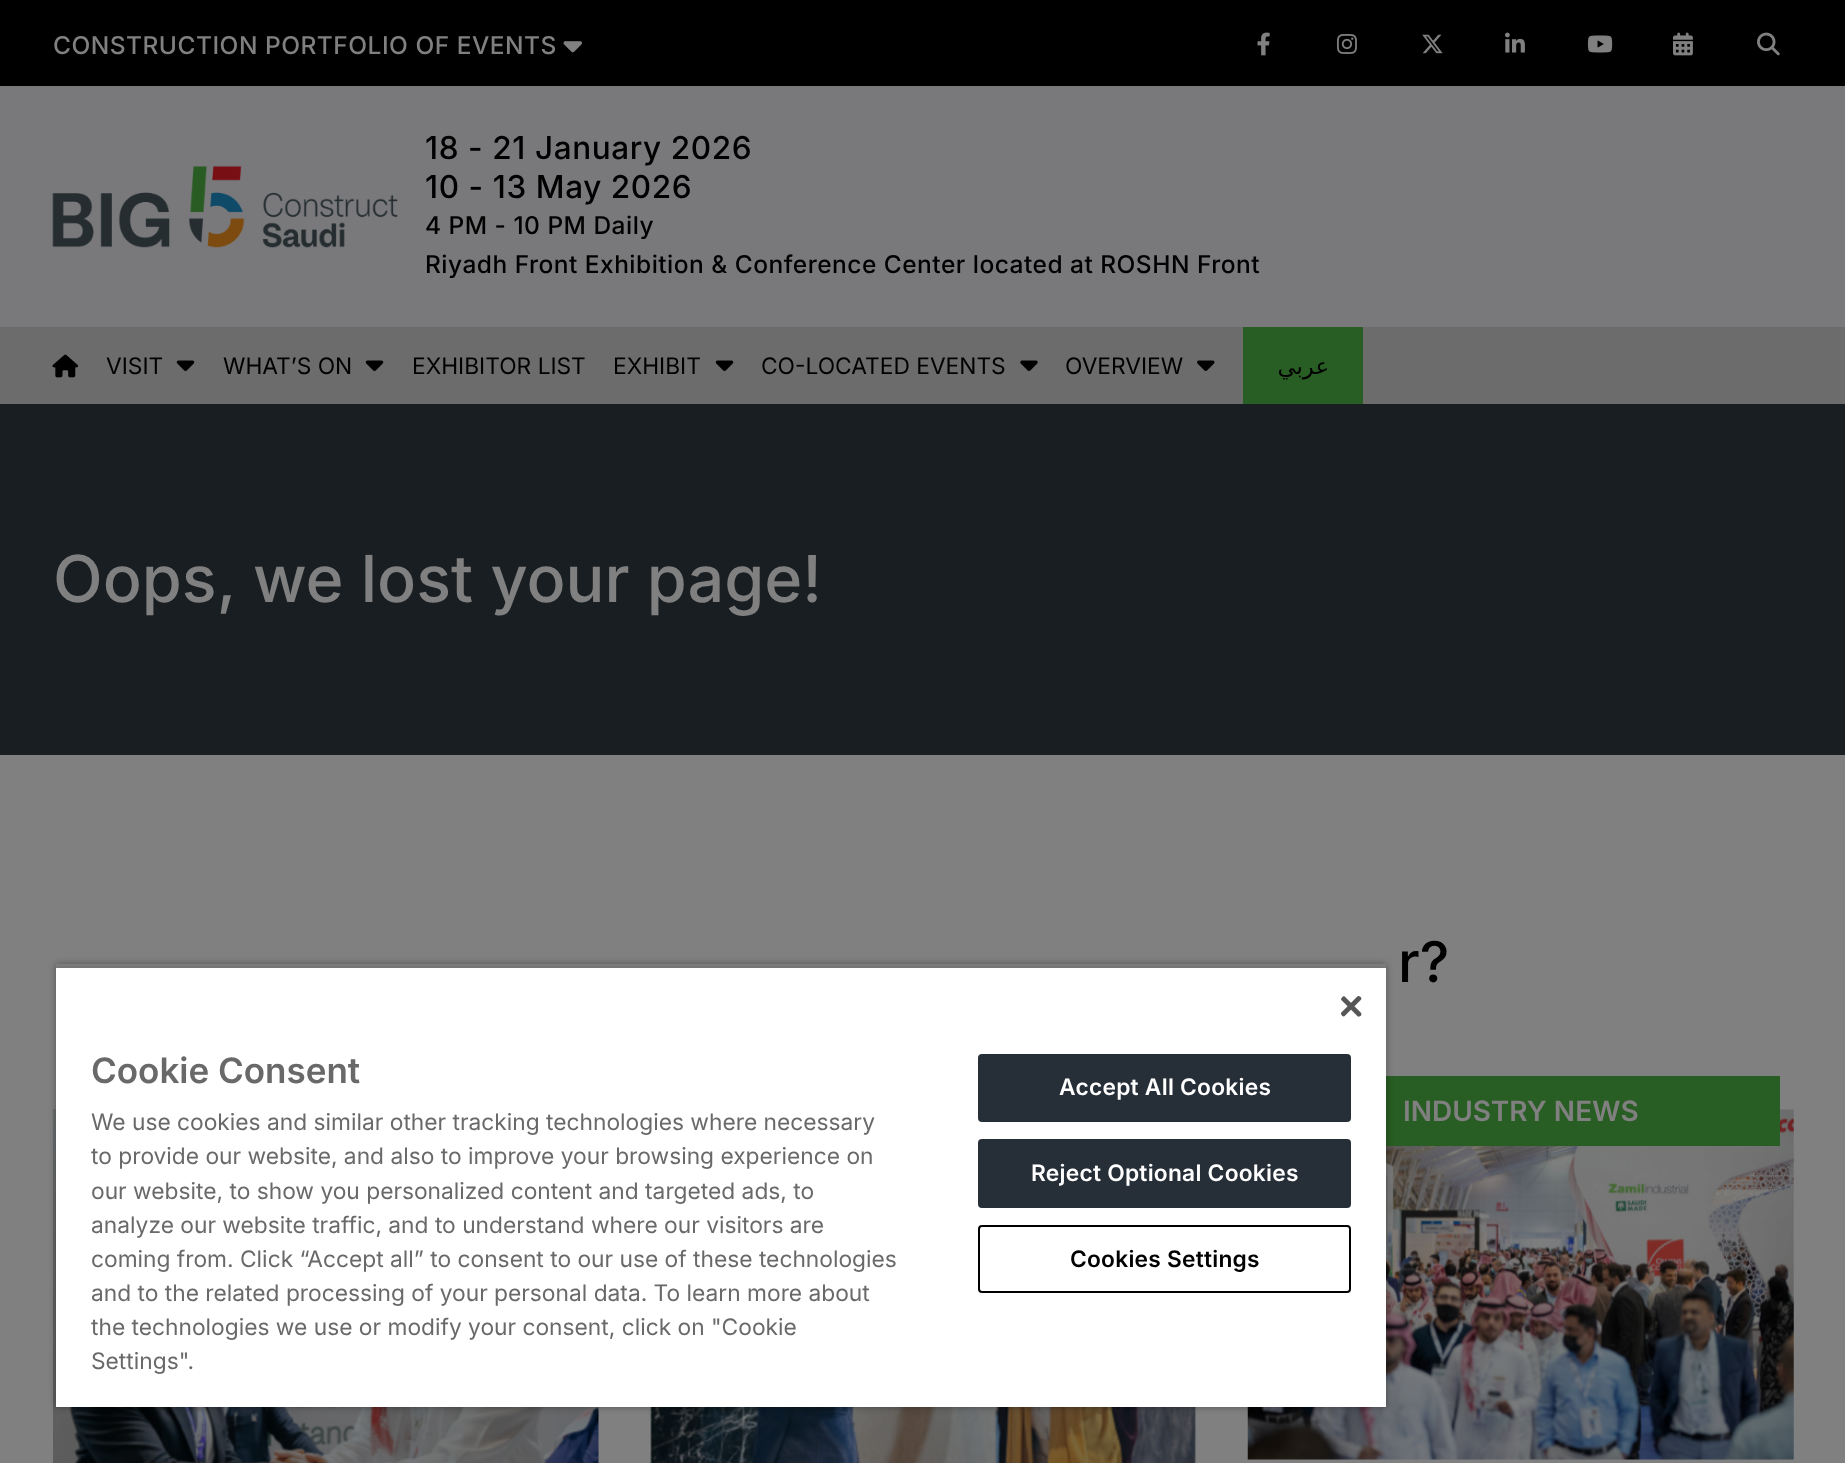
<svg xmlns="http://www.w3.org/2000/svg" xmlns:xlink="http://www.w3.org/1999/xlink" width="1845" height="1463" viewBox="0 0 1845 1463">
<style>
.cls-1{font:500 24.5px Inter;letter-spacing:0.5px;fill:#808080}
.cls-2{font:500 31.5px Inter;letter-spacing:0.6px;fill:#000000}
.cls-3{font:500 24.5px Inter;letter-spacing:0.48px;fill:#000000}
.cls-4{font:22.75px Inter;fill:#000000}
.cls-5{font:22.75px DejaVu Sans;direction:rtl;fill:#000000}
.cls-6{font:500 64.75px Inter;fill:#808080}
.cls-7{font:500 56px Inter;fill:#000000}
.cls-8{font:600 28px Inter;fill:#808080}
.cls-9{font:600 35px Inter;fill:#696969}
.cls-10{font:22.75px Inter;fill:#696969}
.cls-11{font:600 22.75px Inter;letter-spacing:0.25px;fill:#ffffff}
.cls-12{font:600 22.75px Inter;letter-spacing:0.25px;fill:#000000}
</style>
<defs>
<clipPath id="clip1"><path d="M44 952H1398V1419H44ZM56 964H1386V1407H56Z" clip-rule="evenodd"/></clipPath>
<clipPath id="clip2"><rect x="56" y="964" width="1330" height="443"/></clipPath>
</defs>
<rect width="100%" height="100%" fill="#808080"/>
<rect fill="#000000" x="0" y="0" width="1845" height="86"/>
<image xlink:href="image0.png" x="563" y="41" width="19" height="12"/>
<image xlink:href="image1.png" x="1257" y="32" width="13" height="24"/>
<image xlink:href="image2.png" x="1337" y="34" width="20" height="20"/>
<image xlink:href="image3.png" x="1422" y="34" width="21" height="20"/>
<image xlink:href="image4.png" x="1505" y="32" width="20" height="21"/>
<image xlink:href="image5.png" x="1587" y="35" width="26" height="18"/>
<image xlink:href="image6.png" x="1673" y="32" width="20" height="24"/>
<image xlink:href="image7.png" x="1757" y="32" width="23" height="24"/>
<rect fill="#79797b" x="0" y="86" width="1845" height="241"/>
<image xlink:href="image8.png" x="52" y="165" width="346" height="83"/>
<rect fill="#6c6c6d" x="0" y="327" width="1845" height="77"/>
<image xlink:href="image9.png" x="52" y="354" width="27" height="24"/>
<image xlink:href="image10.png" x="176" y="360" width="19" height="11"/>
<image xlink:href="image10.png" x="365" y="360" width="19" height="11"/>
<image xlink:href="image10.png" x="715" y="360" width="19" height="11"/>
<image xlink:href="image11.png" x="1020" y="360" width="18" height="11"/>
<image xlink:href="image12.png" x="1197" y="360" width="18" height="11"/>
<rect fill="#285d23" x="1243" y="327" width="120" height="77"/>
<rect fill="#181e21" x="0" y="404" width="1845" height="351"/>
<image xlink:href="image13.png" x="53" y="1109" width="546" height="354"/>
<image xlink:href="image14.png" x="650" y="1407" width="546" height="56"/>
<image xlink:href="image15.png" x="1247" y="1109" width="547" height="351"/>
<rect fill="#285d23" x="1386" y="1076" width="394" height="70"/>
<g clip-path="url(#clip1)">
<rect fill="#000000" fill-opacity="0.35" filter="blur(3.5px)" x="56" y="964" width="1330" height="443"/>
</g>
<g clip-path="url(#clip2)">
<rect fill="#000000" fill-opacity="0.2" filter="blur(3.5px)" x="56" y="968" width="1330" height="439"/>
</g>
<rect fill="#ffffff" x="56" y="968" width="1330" height="439"/>
<image xlink:href="image16.png" x="1341" y="996" width="21" height="21"/>
<rect fill="#262e38" stroke="#262e38" stroke-width="2" x="979" y="1055" width="371" height="66" rx="3"/>
<rect fill="#262e38" stroke="#262e38" stroke-width="2" x="979" y="1140" width="371" height="67" rx="3"/>
<rect fill="none" stroke="#000000" stroke-width="2" x="979" y="1226" width="371" height="66" rx="3"/>
<text class="cls-1" x="53" y="54">CONSTRUCTION PORTFOLIO OF EVENTS</text>
<text class="cls-2"><tspan x="425" y="159">18 - 21 January 2026</tspan><tspan x="425" y="198">10 - 13 May 2026</tspan></text>
<text class="cls-3"><tspan x="425" y="234">4 PM - 10 PM Daily</tspan><tspan x="425" y="273">Riyadh Front Exhibition &amp; Conference Center located at ROSHN Front</tspan></text>
<text class="cls-4" x="106" y="374">VISIT</text>
<text class="cls-4" x="223" y="374">WHAT’S ON</text>
<text class="cls-4" x="412" y="374">EXHIBITOR LIST</text>
<text class="cls-4" x="613" y="374">EXHIBIT</text>
<text class="cls-4" x="761" y="374">CO-LOCATED EVENTS</text>
<text class="cls-4" x="1065" y="374">OVERVIEW</text>
<text class="cls-5" x="1329" y="374">عربي</text>
<text class="cls-6" x="53" y="602">Oops, we lost your page!</text>
<text class="cls-7" x="1398" y="982">r?</text>
<text class="cls-8" x="1403" y="1121">INDUSTRY NEWS</text>
<text class="cls-9" x="91" y="1083">Cookie Consent</text>
<text class="cls-10"><tspan x="91" y="1130">We use cookies and similar other tracking technologies where necessary</tspan><tspan x="91" y="1164">to provide our website, and also to improve your browsing experience on</tspan><tspan x="91" y="1199">our website, to show you personalized content and targeted ads, to</tspan><tspan x="91" y="1233">analyze our website traffic, and to understand where our visitors are</tspan><tspan x="91" y="1267">coming from. Click “Accept all” to consent to our use of these technologies</tspan><tspan x="91" y="1301">and to the related processing of your personal data. To learn more about</tspan><tspan x="91" y="1335">the technologies we use or modify your consent, click on "Cookie</tspan><tspan x="91" y="1369">Settings".</tspan></text>
<text class="cls-11" x="1059" y="1095">Accept All Cookies</text>
<text class="cls-11" x="1031" y="1181">Reject Optional Cookies</text>
<text class="cls-12" x="1070" y="1267">Cookies Settings</text>
</svg>
